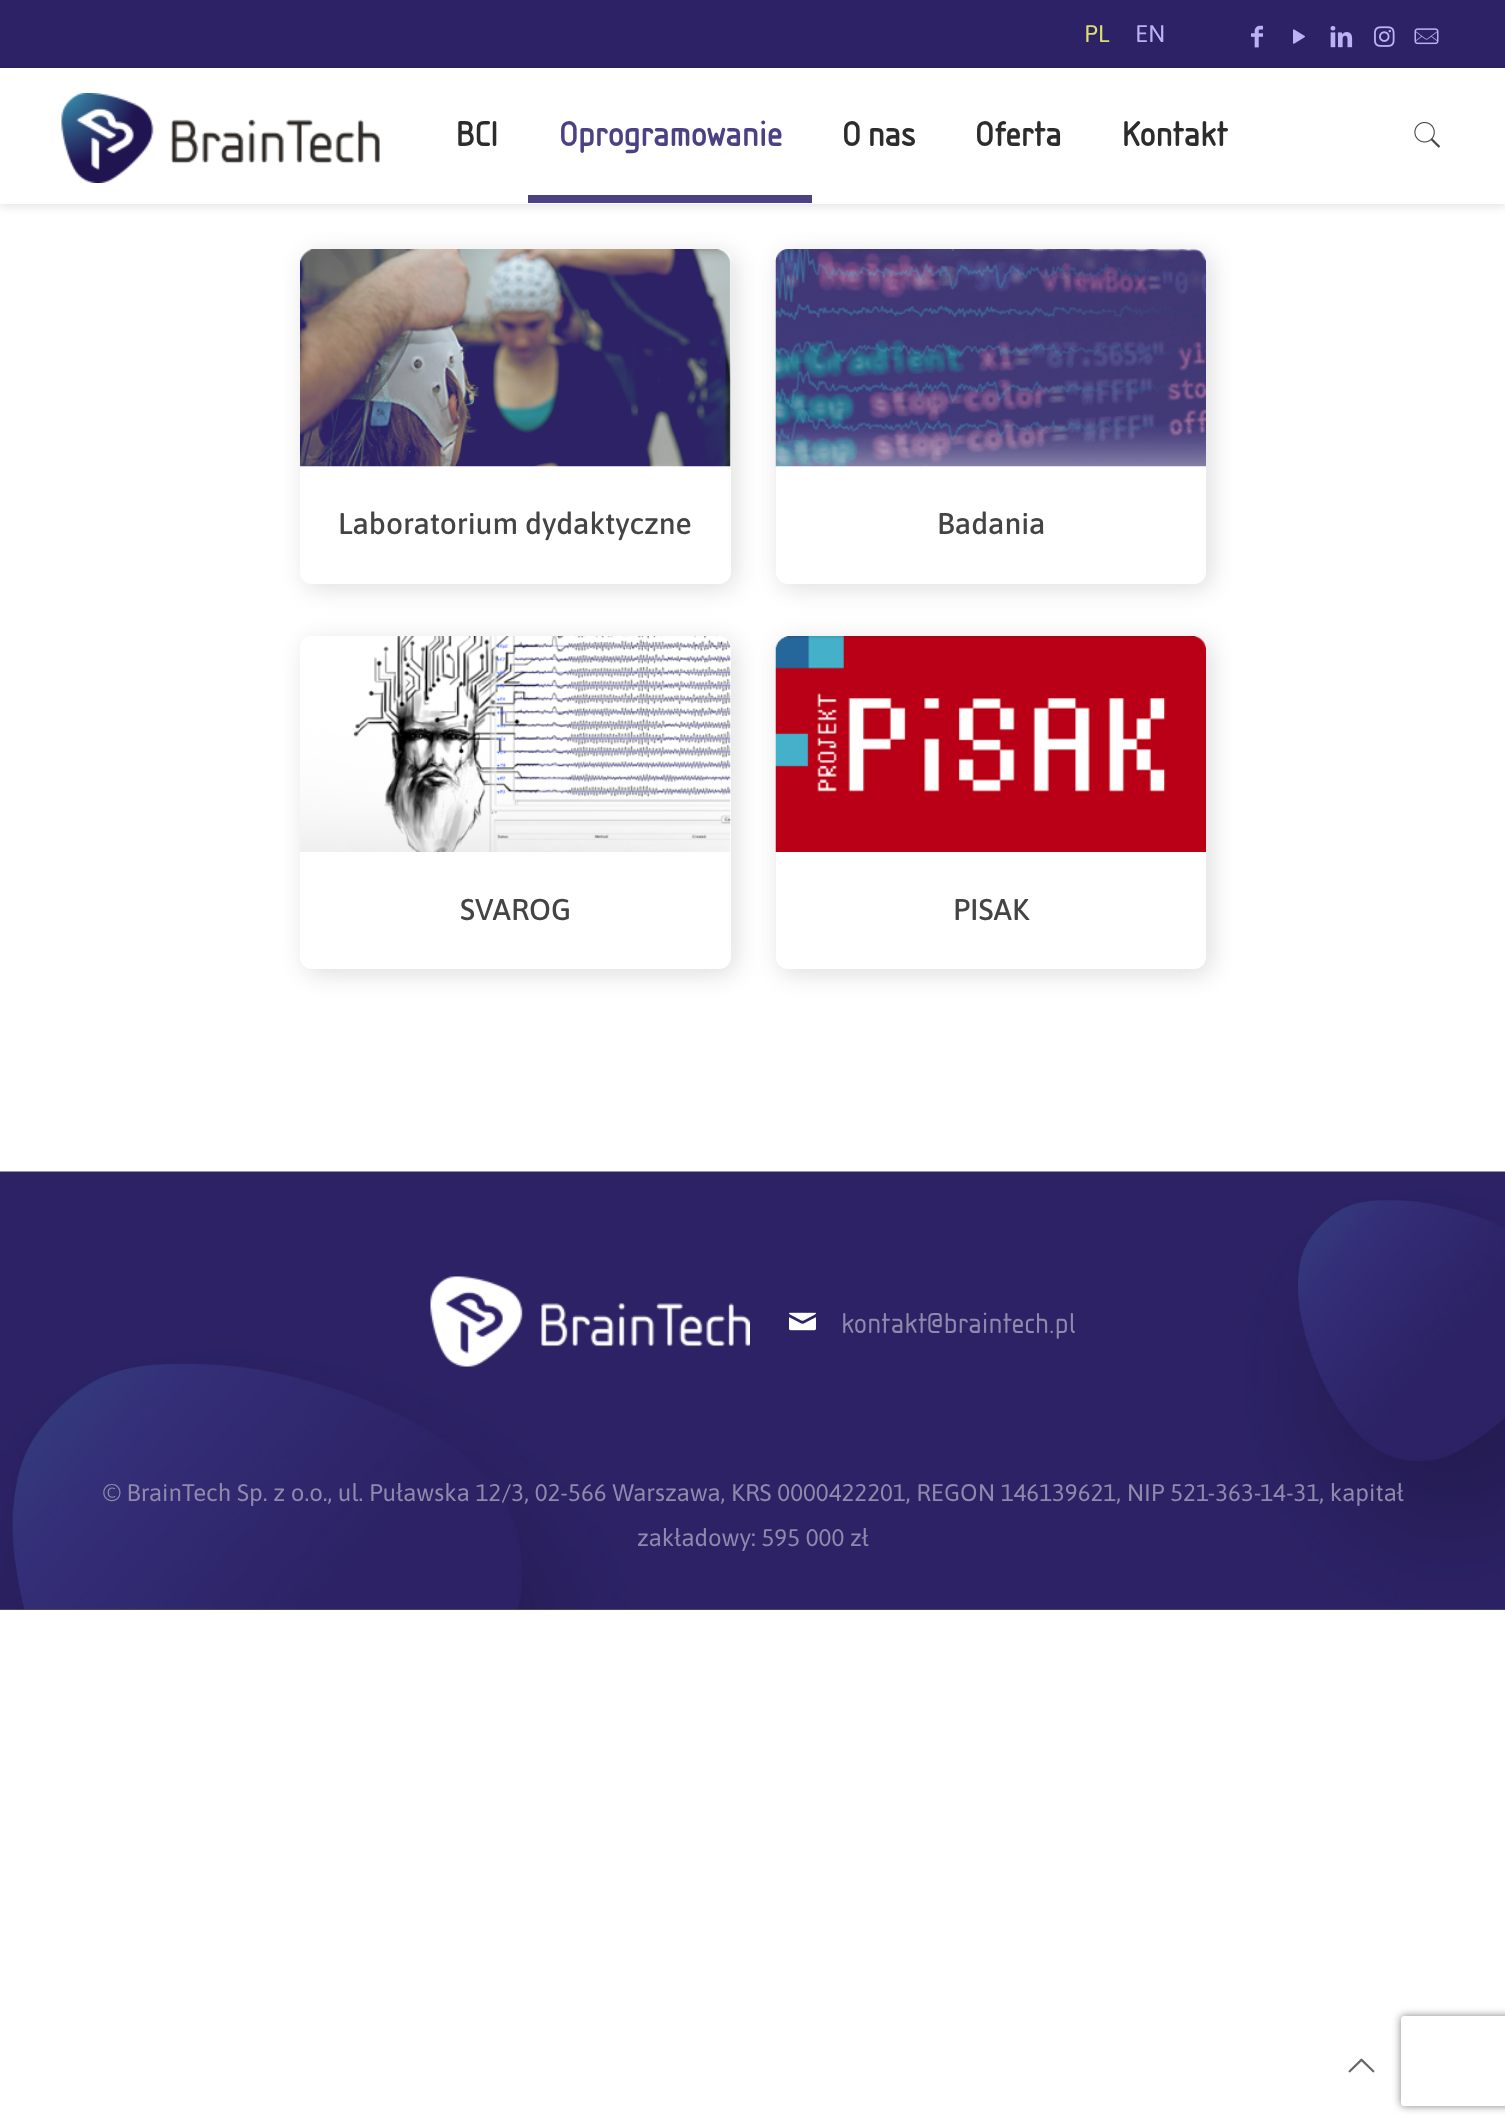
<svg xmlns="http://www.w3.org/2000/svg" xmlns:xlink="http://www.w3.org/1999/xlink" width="1505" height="2127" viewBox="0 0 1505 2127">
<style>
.cls-1{font:24px Asap;fill:#ddde70}
.cls-2{font:24px Asap;fill:#bbb1f4}
.cls-3{font:bold 36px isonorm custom;fill:#2c2c2c}
.cls-4{font:bold 36px isonorm custom;fill:#4d4185}
.cls-5{font:500 30px Asap;fill:#444444}
.cls-6{font:30px isonorm custom;fill:#8f8aac}
.cls-7{font:24px Asap;fill:#8f8aac}
</style>
<defs>
<clipPath id="clip1"><path d="M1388 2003H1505V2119H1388ZM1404 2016H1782C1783.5 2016 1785 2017.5 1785 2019V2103C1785 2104.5 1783.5 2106 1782 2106H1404C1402.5 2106 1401 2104.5 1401 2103V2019C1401 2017.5 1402.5 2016 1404 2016Z" clip-rule="evenodd"/></clipPath>
</defs>
<rect width="100%" height="100%" fill="#ffffff"/>
<rect fill="#2c2265" x="0" y="0" width="1505" height="68"/>
<image xlink:href="image0.png" x="1251" y="25" width="12" height="23"/>
<image xlink:href="image1.png" x="1293" y="29" width="12" height="15"/>
<image xlink:href="image2.png" x="1330" y="26" width="23" height="22"/>
<image xlink:href="image3.png" x="1374" y="26" width="21" height="21"/>
<image xlink:href="image4.png" x="1414" y="28" width="25" height="17"/>
<rect fill="#000000" fill-opacity="0.1" filter="blur(4px)" x="0" y="71" width="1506" height="136"/>
<rect fill="#ffffff" x="0" y="68" width="1505" height="136"/>
<image xlink:href="image5.png" x="61" y="93" width="319" height="90"/>
<rect fill="#4d4185" x="528" y="195" width="284" height="8"/>
<image xlink:href="image6.png" x="1414" y="122" width="27" height="26"/>
<rect fill="#bdbbbd" fill-opacity="0.5" filter="blur(12px)" x="305" y="254" width="430" height="334" rx="12"/>
<rect fill="#ffffff" x="300" y="249" width="431" height="335" rx="12"/>
<image xlink:href="image7.png" x="300" y="249" width="431" height="218"/>
<rect fill="#bdbbbd" fill-opacity="0.5" filter="blur(12px)" x="780" y="254" width="431" height="334" rx="12"/>
<rect fill="#ffffff" x="776" y="249" width="430" height="335" rx="12"/>
<image xlink:href="image8.png" x="775" y="249" width="431" height="218"/>
<rect fill="#bdbbbd" fill-opacity="0.5" filter="blur(12px)" x="305" y="641" width="430" height="333" rx="12"/>
<rect fill="#ffffff" x="300" y="636" width="431" height="333" rx="12"/>
<image xlink:href="image9.png" x="300" y="636" width="431" height="216"/>
<rect fill="#bdbbbd" fill-opacity="0.5" filter="blur(12px)" x="780" y="641" width="431" height="333" rx="12"/>
<rect fill="#ffffff" x="776" y="636" width="430" height="333" rx="12"/>
<image xlink:href="image10.png" x="775" y="636" width="431" height="216"/>
<rect fill="#545454" x="0" y="1609" width="1505" height="1"/>
<image xlink:href="image11.png" x="0" y="1171" width="1505" height="439"/>
<image xlink:href="image12.png" x="430" y="1276" width="320" height="91"/>
<image xlink:href="image13.png" x="789" y="1312" width="27" height="19"/>
<image xlink:href="image14.png" x="1348" y="2058" width="27" height="15"/>
<g clip-path="url(#clip1)">
<rect fill="#808080" filter="blur(4px)" x="1401" y="2016" width="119" height="90" rx="3"/>
</g>
<text class="cls-1" x="1084" y="42">PL</text>
<text class="cls-2" x="1135" y="42">EN</text>
<text class="cls-3" x="455" y="146">BCI</text>
<text class="cls-4" x="559" y="146">Oprogramowanie</text>
<text class="cls-3" x="842" y="146">O nas</text>
<text class="cls-3" x="975" y="146">Oferta</text>
<text class="cls-3" x="1121" y="146">Kontakt</text>
<text class="cls-5" x="338" y="534">Laboratorium dydaktyczne</text>
<text class="cls-5" x="937" y="534">Badania</text>
<text class="cls-5" x="460" y="920">SVAROG</text>
<text class="cls-5" x="953" y="920">PISAK</text>
<text class="cls-6" x="841" y="1333">kontakt@braintech.pl</text>
<text class="cls-7" x="103" y="1501">© BrainTech Sp. z o.o., ul. Puławska 12/3, 02-566 Warszawa, KRS 0000422201, REGON 146139621, NIP 521-363-14-31, kapitał</text>
<text class="cls-7" x="637" y="1546">zakładowy: 595 000 zł</text>
</svg>
